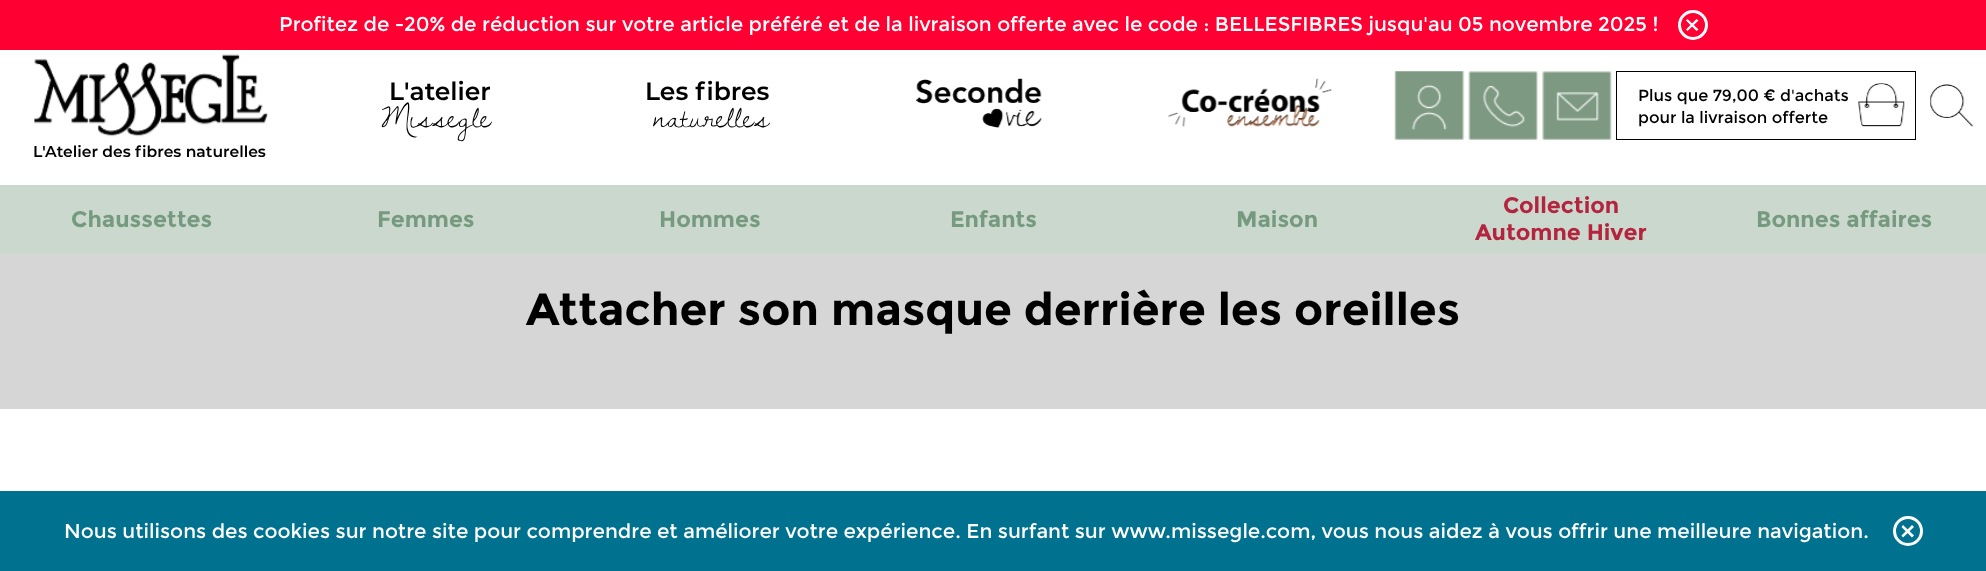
<svg xmlns="http://www.w3.org/2000/svg" xmlns:xlink="http://www.w3.org/1999/xlink" width="1986" height="571" viewBox="0 0 1986 571">
<style>
.cls-1{font:20px Montserrat;fill:#ffffff}
.cls-2{font:600 25px Montserrat;fill:#000000}
.cls-3{font:35px Dawning of a New Day;fill:#000000}
.cls-4{font:16.25px Montserrat;fill:#000000}
.cls-5{font:600 15.6px Montserrat;fill:#000000}
.cls-6{font:bold 22.5px Montserrat;fill:#769a7f}
.cls-7{font:bold 22.5px Montserrat;fill:#b4243f}
.cls-8{font:bold 45px Montserrat;fill:#000000}
</style>
<rect width="100%" height="100%" fill="#ffffff"/>
<rect fill="#ff0033" x="0" y="0" width="1986" height="50"/>
<circle fill="none" stroke="#ffffff" stroke-width="3" cx="1693" cy="25" r="13.5"/>
<path fill="#ffffff" d="M1686 29.5L1696.5 19L1698.5 20.5L1687.5 31Z"/>
<path fill="#ffffff" d="M1687.5 19L1698.5 29.5L1696.5 31L1686 20.5Z"/>
<image xlink:href="image0.png" x="916" y="78" width="126" height="50"/>
<image xlink:href="image1.png" x="1168" y="78" width="164" height="49"/>
<image xlink:href="image2.png" x="1394" y="71" width="71" height="69"/>
<image xlink:href="image3.png" x="1468" y="71" width="71" height="69"/>
<image xlink:href="image4.png" x="1542" y="71" width="70" height="69"/>
<image xlink:href="image5.png" x="1858" y="83" width="47" height="44"/>
<rect fill="none" stroke="#000000" x="1616.5" y="71.5" width="299" height="68"/>
<image xlink:href="image6.png" x="1930" y="84" width="44" height="43"/>
<image xlink:href="image7.png" x="34" y="54" width="235" height="83"/>
<rect fill="#cad8cd" x="0" y="185" width="1986" height="69"/>
<rect fill="#d6d6d6" x="0" y="254" width="1986" height="155"/>
<rect fill="#00728f" x="0" y="491" width="1986" height="80"/>
<circle fill="none" stroke="#ffffff" stroke-width="3" cx="1908" cy="531" r="13.5"/>
<path fill="#ffffff" d="M1901.5 535.5L1912 525L1914 527L1903 537.5Z"/>
<path fill="#ffffff" d="M1903 525L1914 535.5L1912 537.5L1901.5 527Z"/>
<text class="cls-1" x="279" y="31">Profitez de -20% de réduction sur votre article préféré et de la livraison offerte avec le code : BELLESFIBRES jusqu'au 05 novembre 2025 !</text>
<text class="cls-2" x="389" y="100">L'atelier</text>
<text class="cls-3" x="381" y="127">Missegle</text>
<text class="cls-2" x="645" y="100">Les fibres</text>
<text class="cls-3" x="653" y="127">naturelles</text>
<text class="cls-4"><tspan x="1638" y="101">Plus que 79,00 € d'achats</tspan><tspan x="1638" y="123">pour la livraison offerte</tspan></text>
<text class="cls-5" x="33" y="157">L'Atelier des fibres naturelles</text>
<text class="cls-6" x="71" y="227">Chaussettes</text>
<text class="cls-6" x="377" y="227">Femmes</text>
<text class="cls-6" x="659" y="227">Hommes</text>
<text class="cls-6" x="950" y="227">Enfants</text>
<text class="cls-6" x="1236" y="227">Maison</text>
<text class="cls-7" x="1503" y="213">Collection</text>
<text class="cls-7" x="1475" y="240">Automne Hiver</text>
<text class="cls-6" x="1756" y="227">Bonnes affaires</text>
<text class="cls-8" x="526" y="325">Attacher son masque derrière les oreilles</text>
<text class="cls-1" x="64" y="538">Nous utilisons des cookies sur notre site pour comprendre et améliorer votre expérience. En surfant sur www.missegle.com, vous nous aidez à vous offrir une meilleure navigation.</text>
</svg>
